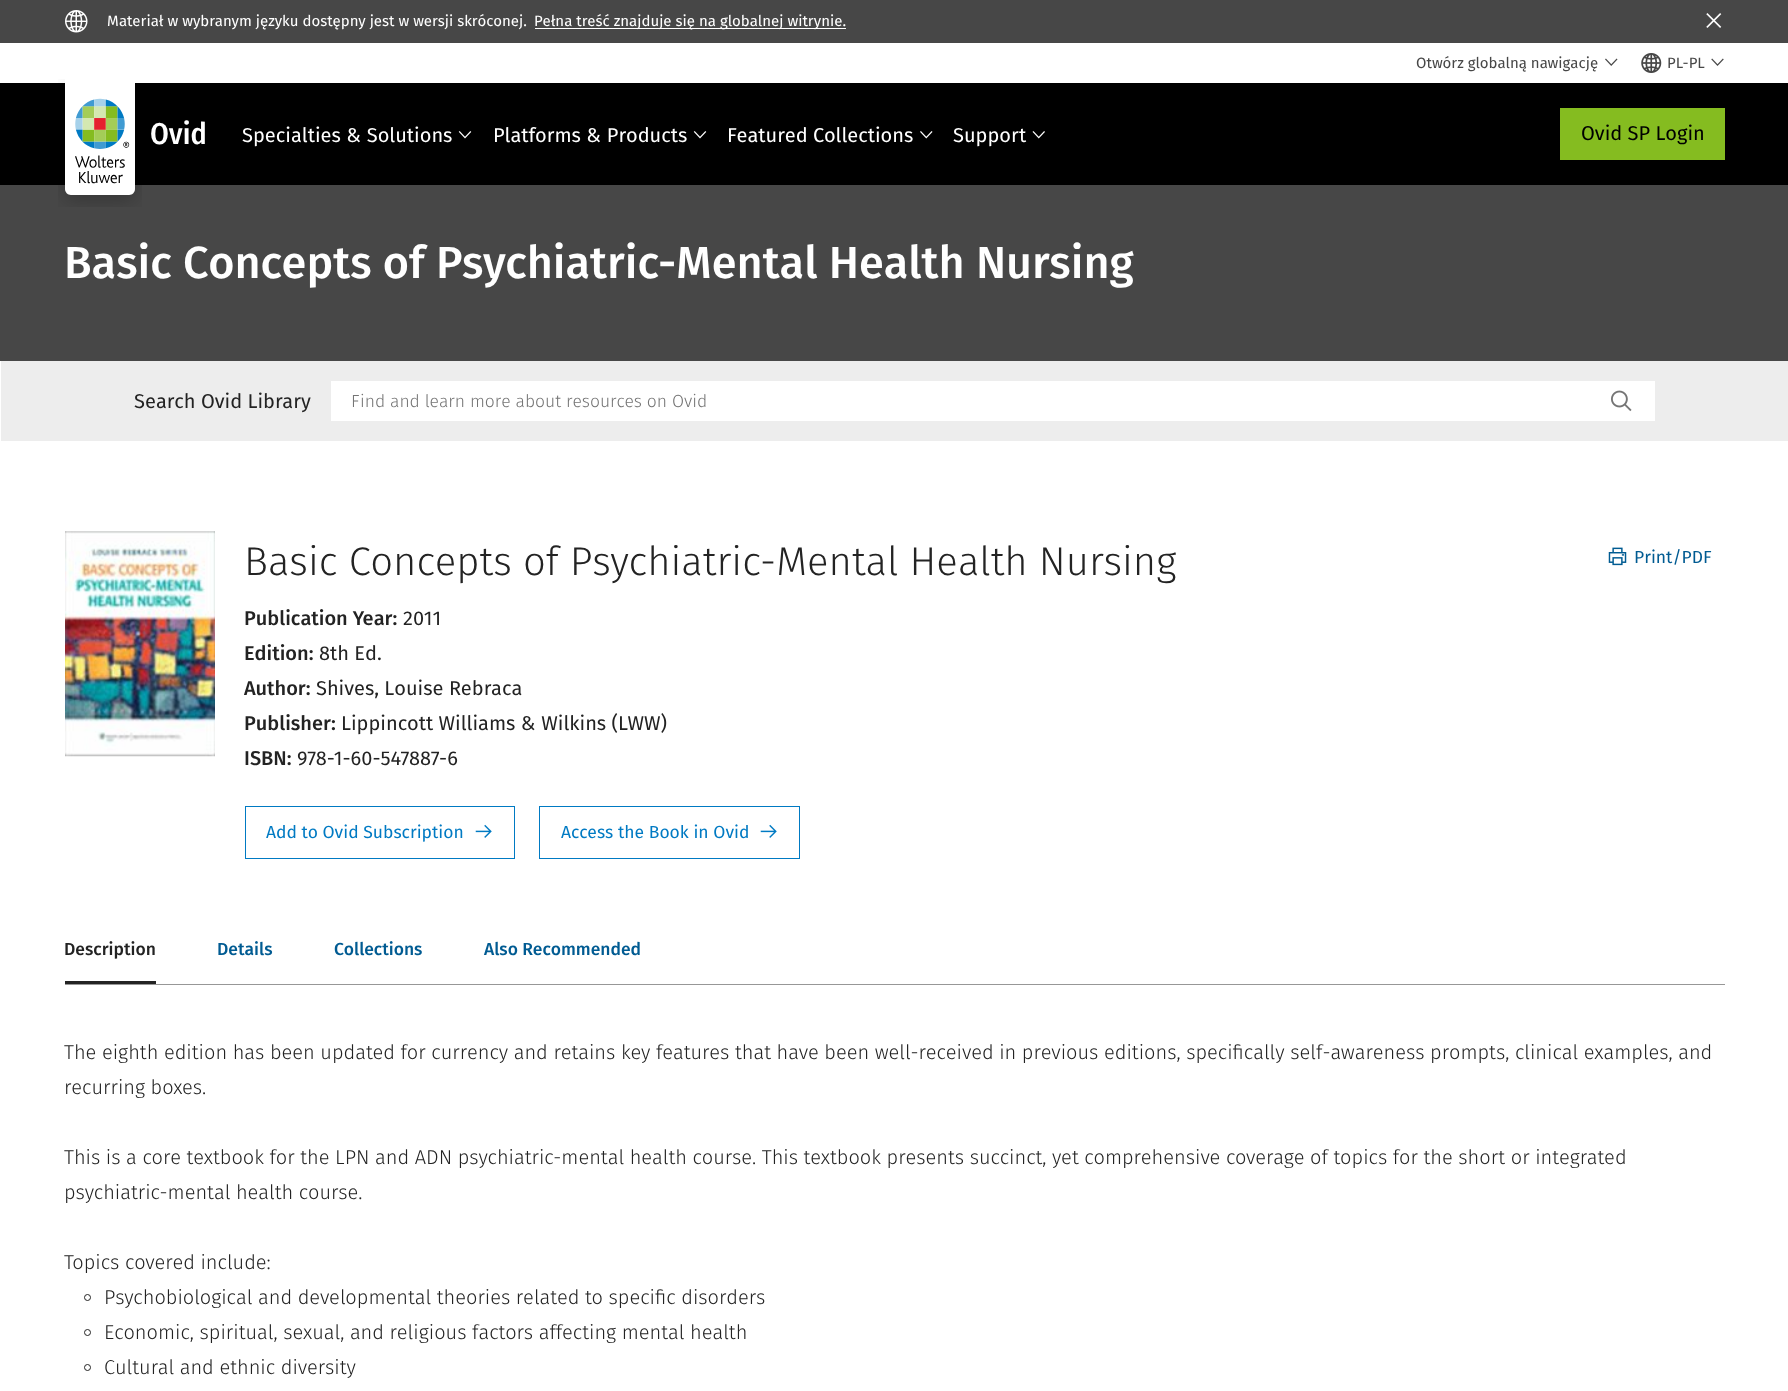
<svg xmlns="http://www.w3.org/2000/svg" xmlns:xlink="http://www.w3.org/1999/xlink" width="1788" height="1391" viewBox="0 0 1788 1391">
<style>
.cls-1{font:15px Fira Sans;fill:#ffffff}
.cls-2{font:15px Fira Sans;fill:#474747}
.cls-3{font:500 30px Fira Sans Condensed;fill:#ffffff}
.cls-4{font:20px Fira Sans;fill:#ffffff}
.cls-5{font:20px Fira Sans;fill:#000000}
.cls-6{font:500 45px Fira Sans;fill:#ffffff}
.cls-7{font:20px Fira Sans;fill:#232323}
.cls-8{font:300 17.5px Fira Sans;fill:#757575}
.cls-9{font:300 40px Fira Sans;fill:#232323}
.cls-10{font:17.5px Fira Sans;fill:#005b92}
.cls-11{font:500 20px Fira Sans;fill:#232323}
.cls-12{font:17.5px Fira Sans;fill:#007ac3}
.cls-13{font:500 17.5px Fira Sans;fill:#232323}
.cls-14{font:500 17.5px Fira Sans;fill:#005b92}
.cls-15{font:300 20px Fira Sans;fill:#232323}
</style>
<rect width="100%" height="100%" fill="#ffffff"/>
<rect fill="#474747" x="0" y="0" width="1788" height="43"/>
<image xlink:href="image0.png" x="65" y="10" width="23" height="23"/>
<rect fill="#ffffff" x="535" y="28" width="311" height="1"/>
<image xlink:href="image1.png" x="1706" y="13" width="16" height="15"/>
<rect fill="#000000" x="0" y="83" width="1788" height="102"/>
<rect fill="#474747" x="0" y="185" width="1788" height="176"/>
<image xlink:href="image5.png" x="58" y="79" width="84" height="128"/>
<rect fill="#ffffff" x="65" y="79" width="77" height="4"/>
<image xlink:href="image2.png" x="1605" y="58" width="13" height="8"/>
<image xlink:href="image3.png" x="1641" y="53" width="21" height="20"/>
<image xlink:href="image4.png" x="1711" y="58" width="13" height="8"/>
<image xlink:href="image6.png" x="458" y="131" width="14" height="8"/>
<image xlink:href="image6.png" x="693" y="131" width="14" height="8"/>
<image xlink:href="image7.png" x="920" y="131" width="13" height="8"/>
<image xlink:href="image8.png" x="1032" y="131" width="13" height="8"/>
<rect fill="#85bc20" x="1560" y="108" width="165" height="52"/>
<rect fill="#ededed" x="1" y="361" width="1787" height="80"/>
<rect fill="#ffffff" x="331" y="381" width="1324" height="40"/>
<image xlink:href="image9.png" x="1611" y="390" width="21" height="22"/>
<image xlink:href="image10.png" x="65" y="531" width="150" height="226"/>
<image xlink:href="image11.png" x="1608" y="547" width="19" height="19"/>
<rect fill="none" stroke="#007ac3" x="245.5" y="806.5" width="269" height="52"/>
<image xlink:href="image12.png" x="475" y="824" width="17" height="14"/>
<rect fill="none" stroke="#007ac3" x="539.5" y="806.5" width="260" height="52"/>
<image xlink:href="image12.png" x="760" y="824" width="17" height="14"/>
<rect fill="#232323" x="65" y="981" width="91" height="3"/>
<rect fill="#979797" x="65" y="984" width="1660" height="1"/>
<circle fill="none" stroke="#232323" cx="87.5" cy="1297.5" r="3"/>
<circle fill="none" stroke="#232323" cx="87.5" cy="1332.5" r="3"/>
<circle fill="none" stroke="#232323" cx="87.5" cy="1367.5" r="3"/>
<text class="cls-1" x="107" y="26">Materiał w wybranym języku dostępny jest w wersji skróconej.</text>
<text class="cls-1" x="534" y="26">Pełna treść znajduje się na globalnej witrynie.</text>
<text class="cls-2" x="1416" y="68">Otwórz globalną nawigację</text>
<text class="cls-2" x="1667" y="68">PL-PL</text>
<text class="cls-3" x="150" y="144">Ovid</text>
<text class="cls-4" x="242" y="142">Specialties &amp; Solutions</text>
<text class="cls-4" x="493" y="142">Platforms &amp; Products</text>
<text class="cls-4" x="727" y="142">Featured Collections</text>
<text class="cls-4" x="953" y="142">Support</text>
<text class="cls-5" x="1581" y="140">Ovid SP Login</text>
<text class="cls-6" x="64" y="278">Basic Concepts of Psychiatric-Mental Health Nursing</text>
<text class="cls-7" x="134" y="408">Search Ovid Library</text>
<text class="cls-8" x="351" y="407">Find and learn more about resources on Ovid</text>
<text class="cls-9" x="244" y="575">Basic Concepts of Psychiatric-Mental Health Nursing</text>
<text class="cls-10" x="1634" y="563">Print/PDF</text>
<text class="cls-11" x="244" y="625">Publication Year:</text>
<text class="cls-7" x="403" y="625">2011</text>
<text class="cls-11" x="244" y="660">Edition:</text>
<text class="cls-7" x="319" y="660">8th Ed.</text>
<text class="cls-11" x="244" y="695">Author:</text>
<text class="cls-7" x="316" y="695">Shives, Louise Rebraca</text>
<text class="cls-11" x="244" y="730">Publisher:</text>
<text class="cls-7" x="341" y="730">Lippincott Williams &amp; Wilkins (LWW)</text>
<text class="cls-11" x="244" y="765">ISBN:</text>
<text class="cls-7" x="297" y="765">978-1-60-547887-6</text>
<text class="cls-12" x="266" y="838">Add to Ovid Subscription</text>
<text class="cls-12" x="561" y="838">Access the Book in Ovid</text>
<text class="cls-13" x="64" y="955">Description</text>
<text class="cls-14" x="217" y="955">Details</text>
<text class="cls-14" x="334" y="955">Collections</text>
<text class="cls-14" x="484" y="955">Also Recommended</text>
<text class="cls-15"><tspan x="64" y="1059">The eighth edition has been updated for currency and retains key features that have been well-received in previous editions, specifically self-awareness prompts, clinical examples, and</tspan><tspan x="64" y="1094">recurring boxes.</tspan></text>
<text class="cls-15"><tspan x="64" y="1164">This is a core textbook for the LPN and ADN psychiatric-mental health course. This textbook presents succinct, yet comprehensive coverage of topics for the short or integrated</tspan><tspan x="64" y="1199">psychiatric-mental health course.</tspan></text>
<text class="cls-15" x="64" y="1269">Topics covered include:</text>
<text class="cls-15"><tspan x="104" y="1304">Psychobiological and developmental theories related to specific disorders</tspan><tspan x="104" y="1339">Economic, spiritual, sexual, and religious factors affecting mental health</tspan><tspan x="104" y="1374">Cultural and ethnic diversity</tspan></text>
</svg>
